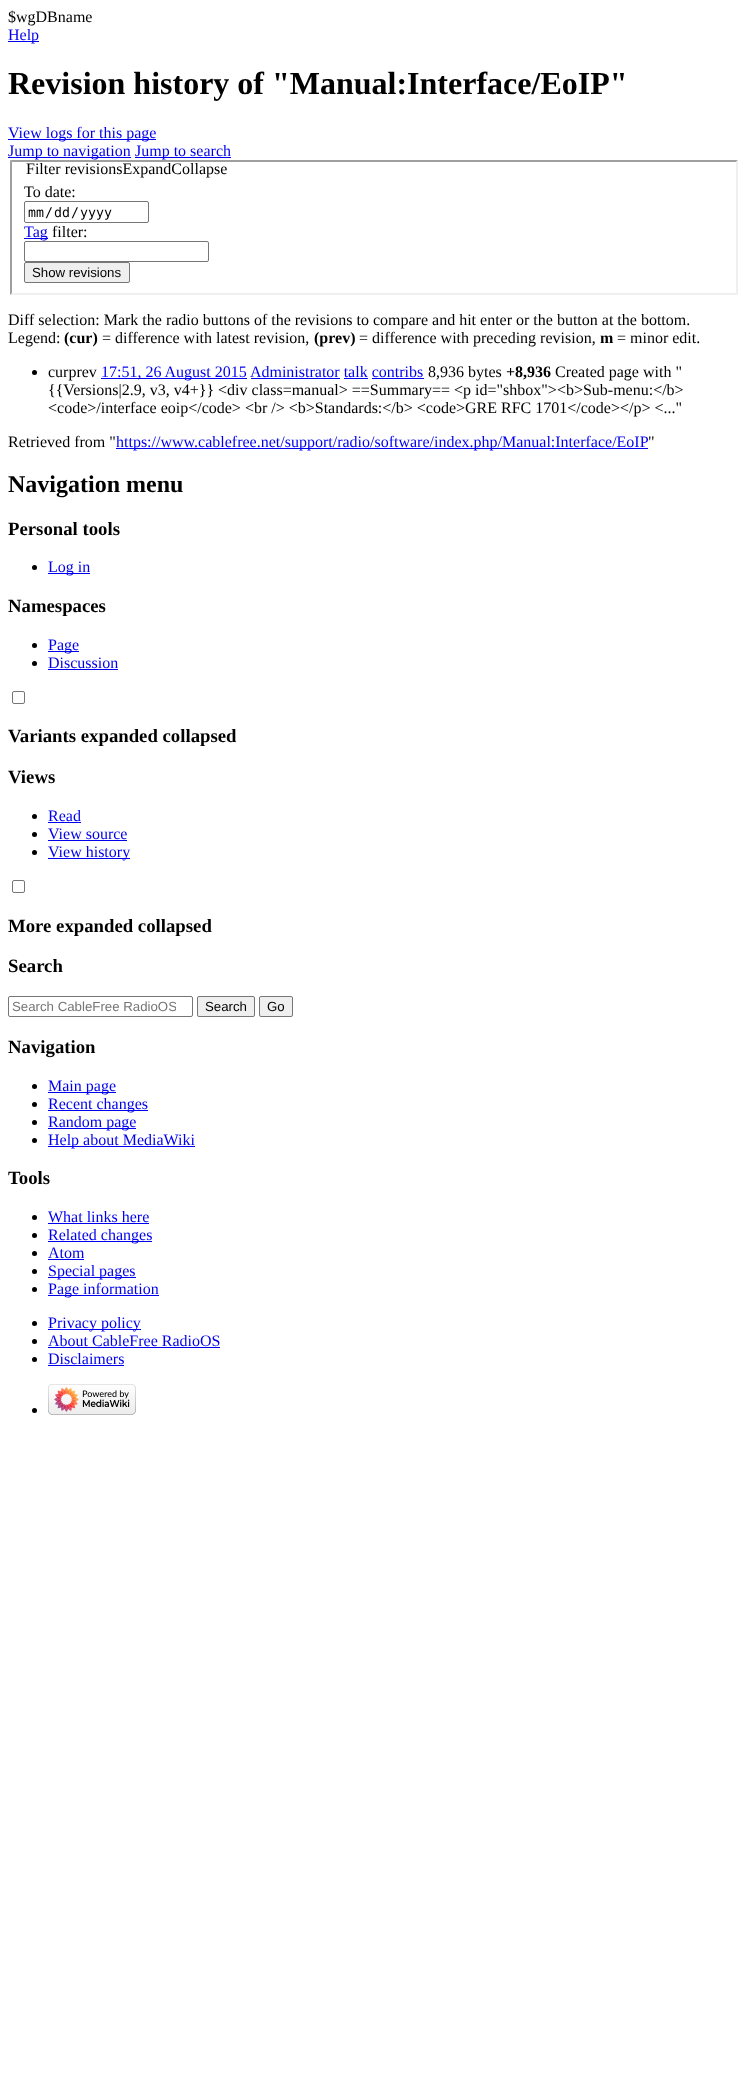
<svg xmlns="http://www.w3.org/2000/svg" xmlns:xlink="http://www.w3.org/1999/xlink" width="748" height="2091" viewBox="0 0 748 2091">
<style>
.cls-1{font:16px Liberation Serif;fill:#000000}
.cls-2{font:16px Liberation Serif;fill:#0000ee}
.cls-3{font:bold 32px Liberation Serif;fill:#000000}
.cls-4{font:13.25px DejaVu Sans Mono;fill:#000000}
.cls-5{font:13.25px Liberation Sans;fill:#000000}
.cls-6{font:bold 16px Liberation Serif;fill:#000000}
.cls-7{font:bold 24px Liberation Serif;fill:#000000}
.cls-8{font:bold 18.75px Liberation Serif;fill:#000000}
.cls-9{font:13.25px Liberation Sans;fill:#757575}
</style>
<defs>
<clipPath id="clip1"><rect x="12" y="999" width="164" height="15"/></clipPath>
</defs>
<rect width="100%" height="100%" fill="#ffffff"/>
<rect fill="#0000ee" x="8" y="41" width="31" height="1"/>
<rect fill="#0000ee" x="8" y="139" width="148" height="1"/>
<rect fill="#0000ee" x="8" y="157" width="123" height="1"/>
<rect fill="#0000ee" x="135" y="157" width="96" height="1"/>
<path fill="#9f9f9f" d="M10 160H738L736 162H12Z"/>
<path fill="#efefef" d="M738 160V295L736 293V162Z"/>
<path fill="#efefef" d="M738 295H10L12 293H736Z"/>
<path fill="#9f9f9f" d="M10 295V160L12 162V293Z"/>
<rect fill="none" stroke="#767676" x="24.5" y="201.5" width="124" height="21" rx="1.5"/>
<rect fill="#0000ee" x="24" y="238" width="24" height="1"/>
<rect fill="none" stroke="#767676" x="24.5" y="241.5" width="184" height="20" rx="1.5"/>
<rect fill="#efefef" stroke="#767676" x="24.5" y="262.5" width="105" height="20" rx="1.5"/>
<circle fill="#000000" cx="34.5" cy="372.5" r="2.5"/>
<rect fill="#0000ee" x="101" y="378" width="146" height="1"/>
<rect fill="#0000ee" x="251" y="378" width="89" height="1"/>
<rect fill="#0000ee" x="344" y="378" width="24" height="1"/>
<rect fill="#0000ee" x="372" y="378" width="52" height="1"/>
<rect fill="#0000ee" x="116" y="448" width="532" height="1"/>
<circle fill="#000000" cx="34.5" cy="567.5" r="2.5"/>
<rect fill="#0000ee" x="48" y="573" width="42" height="1"/>
<circle fill="#000000" cx="34.5" cy="645.5" r="2.5"/>
<rect fill="#0000ee" x="48" y="651" width="31" height="1"/>
<circle fill="#000000" cx="34.5" cy="663.5" r="2.5"/>
<rect fill="#0000ee" x="48" y="669" width="70" height="1"/>
<rect fill="none" stroke="#767676" x="12.5" y="691.5" width="12" height="12" rx="1.5"/>
<circle fill="#000000" cx="34.5" cy="816.5" r="2.5"/>
<rect fill="#0000ee" x="48" y="822" width="33" height="1"/>
<circle fill="#000000" cx="34.5" cy="834.5" r="2.5"/>
<rect fill="#0000ee" x="48" y="840" width="79" height="1"/>
<circle fill="#000000" cx="34.5" cy="852.5" r="2.5"/>
<rect fill="#0000ee" x="48" y="858" width="82" height="1"/>
<rect fill="none" stroke="#767676" x="12.5" y="880.5" width="12" height="12" rx="1.5"/>
<rect fill="none" stroke="#767676" x="8.5" y="996.5" width="184" height="20" rx="1.5"/>
<rect fill="#efefef" stroke="#767676" x="197.5" y="996.5" width="57" height="20" rx="1.5"/>
<rect fill="#efefef" stroke="#767676" x="259.5" y="996.5" width="33" height="20" rx="1.5"/>
<circle fill="#000000" cx="34.5" cy="1086.5" r="2.5"/>
<rect fill="#0000ee" x="48" y="1092" width="68" height="1"/>
<circle fill="#000000" cx="34.5" cy="1104.5" r="2.5"/>
<rect fill="#0000ee" x="48" y="1110" width="100" height="1"/>
<circle fill="#000000" cx="34.5" cy="1122.5" r="2.5"/>
<rect fill="#0000ee" x="48" y="1128" width="88" height="1"/>
<circle fill="#000000" cx="34.5" cy="1140.5" r="2.5"/>
<rect fill="#0000ee" x="48" y="1146" width="147" height="1"/>
<circle fill="#000000" cx="34.5" cy="1217.5" r="2.5"/>
<rect fill="#0000ee" x="48" y="1223" width="101" height="1"/>
<circle fill="#000000" cx="34.5" cy="1235.5" r="2.5"/>
<rect fill="#0000ee" x="48" y="1241" width="104" height="1"/>
<circle fill="#000000" cx="34.5" cy="1253.5" r="2.5"/>
<rect fill="#0000ee" x="48" y="1259" width="36" height="1"/>
<circle fill="#000000" cx="34.5" cy="1271.5" r="2.5"/>
<rect fill="#0000ee" x="48" y="1277" width="88" height="1"/>
<circle fill="#000000" cx="34.5" cy="1289.5" r="2.5"/>
<rect fill="#0000ee" x="48" y="1295" width="111" height="1"/>
<circle fill="#000000" cx="34.5" cy="1323.5" r="2.5"/>
<rect fill="#0000ee" x="48" y="1329" width="93" height="1"/>
<circle fill="#000000" cx="34.5" cy="1341.5" r="2.5"/>
<rect fill="#0000ee" x="48" y="1347" width="172" height="1"/>
<circle fill="#000000" cx="34.5" cy="1359.5" r="2.5"/>
<rect fill="#0000ee" x="48" y="1365" width="76" height="1"/>
<circle fill="#000000" cx="34.5" cy="1410.5" r="2.5"/>
<image xlink:href="image0.png" x="48" y="1384" width="88" height="31"/>
<text class="cls-1" x="8" y="22">$wgDBname</text>
<text class="cls-2" x="8" y="40">Help</text>
<text class="cls-3" x="8" y="94">Revision history of "Manual:Interface/EoIP"</text>
<text class="cls-2"><tspan x="8" y="138">View logs for this page</tspan><tspan x="8" y="156">Jump to navigation</tspan></text>
<text class="cls-2" x="135" y="156">Jump to search</text>
<text class="cls-1" x="26" y="174">Filter revisionsExpandCollapse</text>
<text class="cls-1" x="24" y="197">To date:</text>
<text class="cls-4" x="28" y="217">mm</text>
<text class="cls-4" x="45" y="217">/</text>
<text class="cls-4" x="54" y="217">dd</text>
<text class="cls-4" x="71" y="217">/</text>
<text class="cls-4" x="80" y="217">yyyy</text>
<text class="cls-2" x="24" y="237">Tag</text>
<text class="cls-1" x="52" y="237">filter:</text>
<text class="cls-5" x="32" y="277">Show revisions</text>
<text class="cls-1"><tspan x="8" y="325">Diff selection: Mark the radio buttons of the revisions to compare and hit enter or the button at the bottom.</tspan><tspan x="8" y="343">Legend:</tspan></text>
<text class="cls-6" x="64" y="343">(cur)</text>
<text class="cls-1" x="102" y="343">= difference with latest revision,</text>
<text class="cls-6" x="314" y="343">(prev)</text>
<text class="cls-1" x="359" y="343">= difference with preceding revision,</text>
<text class="cls-6" x="600" y="343">m</text>
<text class="cls-1" x="617" y="343">= minor edit.</text>
<text class="cls-1" x="48" y="377">curprev</text>
<text class="cls-2" x="101" y="377">17:51, 26 August 2015 Administrator talk contribs</text>
<text class="cls-1" x="428" y="377">8,936 bytes</text>
<text class="cls-6" x="506" y="377">+8,936</text>
<text class="cls-1" x="555" y="377">Created page with "</text>
<text class="cls-1"><tspan x="48" y="395">{{Versions|2.9, v3, v4+}} &lt;div class=manual&gt; ==Summary== &lt;p id="shbox"&gt;&lt;b&gt;Sub-menu:&lt;/b&gt;</tspan><tspan x="48" y="413">&lt;code&gt;/interface eoip&lt;/code&gt; &lt;br /&gt; &lt;b&gt;Standards:&lt;/b&gt; &lt;code&gt;GRE RFC 1701&lt;/code&gt;&lt;/p&gt; &lt;..."</tspan></text>
<text class="cls-1" x="8" y="447">Retrieved from "</text>
<text class="cls-2" x="116" y="447">https://www.cablefree.net/support/radio/software/index.php/Manual:Interface/EoIP</text>
<text class="cls-1" x="648" y="447">"</text>
<text class="cls-7" x="8" y="492">Navigation menu</text>
<text class="cls-8" x="8" y="535">Personal tools</text>
<text class="cls-2" x="48" y="572">Log in</text>
<text class="cls-8" x="8" y="612">Namespaces</text>
<text class="cls-2"><tspan x="48" y="650">Page</tspan><tspan x="48" y="668">Discussion</tspan></text>
<text class="cls-8" x="8" y="742">Variants expanded collapsed</text>
<text class="cls-8" x="8" y="783">Views</text>
<text class="cls-2"><tspan x="48" y="821">Read</tspan><tspan x="48" y="839">View source</tspan><tspan x="48" y="857">View history</tspan></text>
<text class="cls-8" x="8" y="932">More expanded collapsed</text>
<text class="cls-8" x="8" y="972">Search</text>
<g clip-path="url(#clip1)">
<text class="cls-9" x="12" y="1011">Search CableFree RadioOS</text>
</g>
<text class="cls-5" x="205" y="1011">Search</text>
<text class="cls-5" x="267" y="1011">Go</text>
<text class="cls-8" x="8" y="1053">Navigation</text>
<text class="cls-2"><tspan x="48" y="1091">Main page</tspan><tspan x="48" y="1109">Recent changes</tspan><tspan x="48" y="1127">Random page</tspan><tspan x="48" y="1145">Help about MediaWiki</tspan></text>
<text class="cls-8" x="8" y="1184">Tools</text>
<text class="cls-2"><tspan x="48" y="1222">What links here</tspan><tspan x="48" y="1240">Related changes</tspan><tspan x="48" y="1258">Atom</tspan><tspan x="48" y="1276">Special pages</tspan><tspan x="48" y="1294">Page information</tspan></text>
<text class="cls-2"><tspan x="48" y="1328">Privacy policy</tspan><tspan x="48" y="1346">About CableFree RadioOS</tspan><tspan x="48" y="1364">Disclaimers</tspan></text>
</svg>
